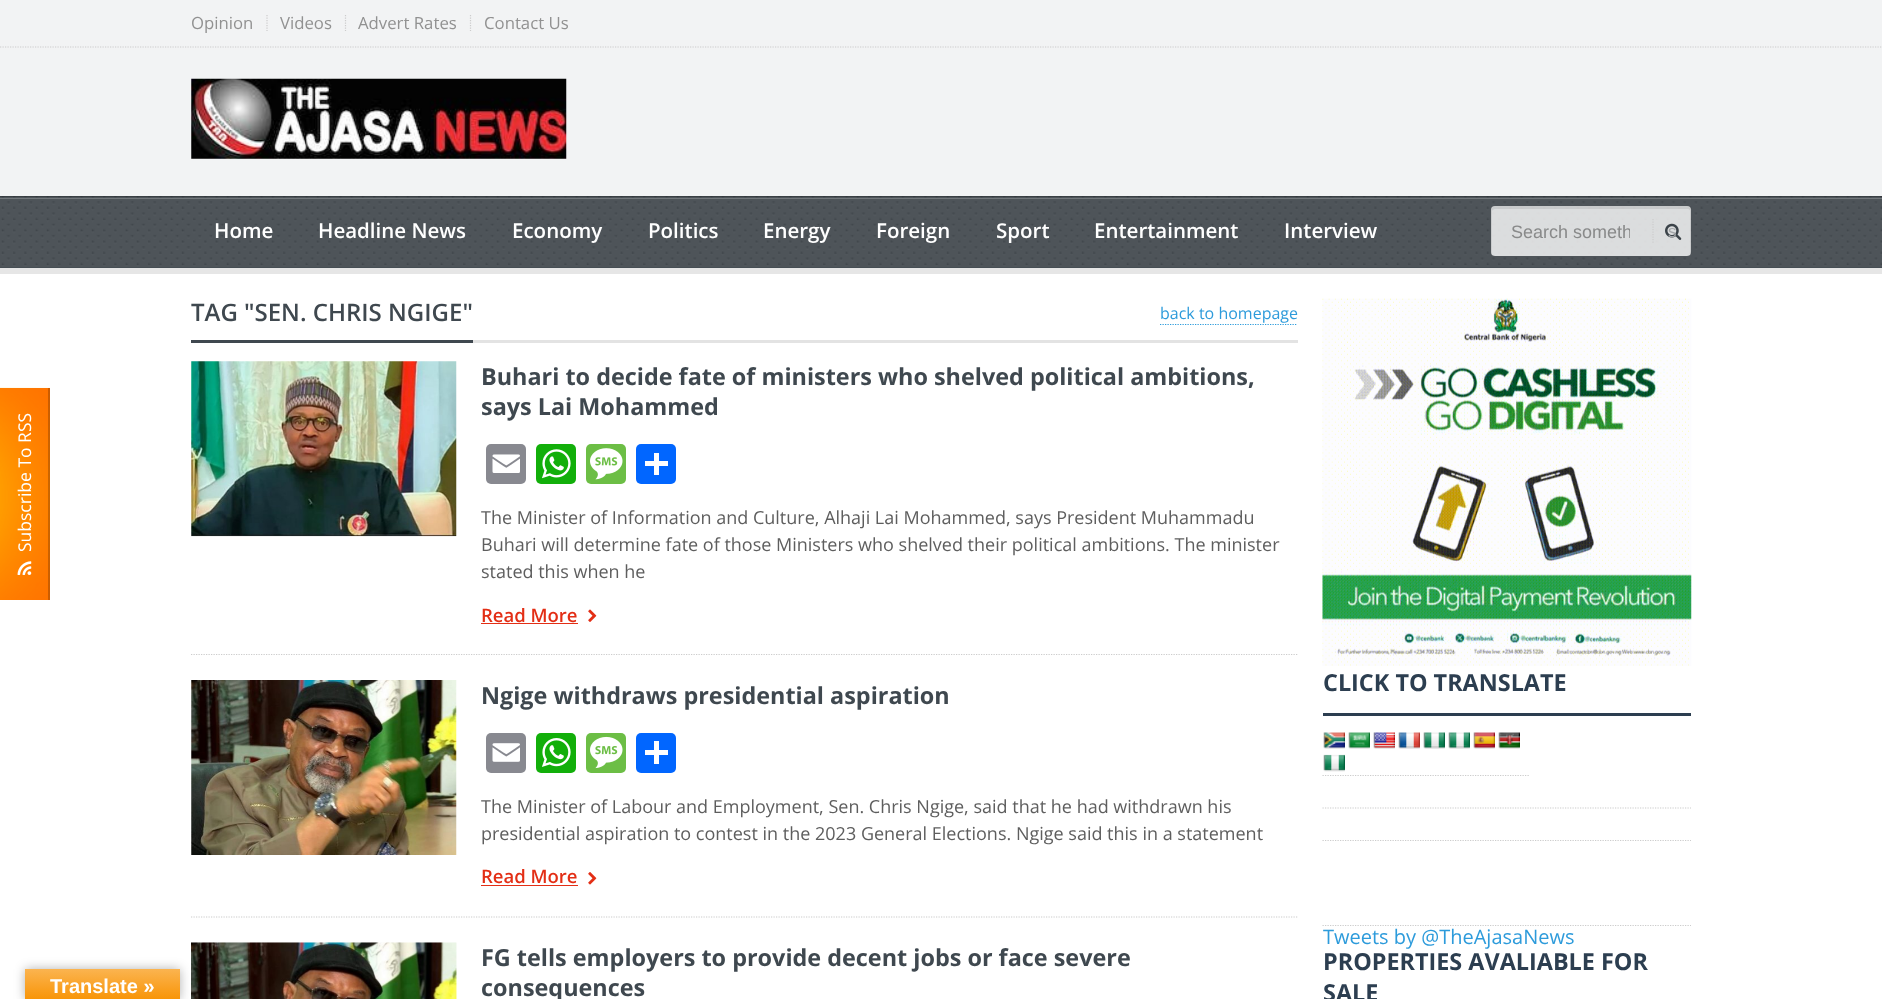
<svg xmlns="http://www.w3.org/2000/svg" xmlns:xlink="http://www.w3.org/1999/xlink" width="1882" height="999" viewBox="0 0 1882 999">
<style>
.cls-1{font:16.75px Open Sans;fill:#919191}
.cls-2{font:600 20.5px Open Sans;fill:#ffffff}
.cls-3{font:18px Liberation Sans;fill:#898a8a}
.cls-4{font:17px Liberation Sans;fill:#a3a6a9}
.cls-5{font:17.5px Open Sans;fill:#ffffff}
.cls-6{font:600 24px Open Sans;fill:#3f484f}
.cls-7{font:16px Open Sans;fill:#2d9bdb}
.cls-8{font:bold 23.4px Open Sans;fill:#3f484f}
.cls-9{font:18px Open Sans;fill:#5e5e5e}
.cls-10{font:600 18.5px Open Sans;fill:#e32e15}
.cls-11{font:bold 23.4px Open Sans;fill:#2c3e50}
.cls-12{font:20px Open Sans;fill:#2d9bdb}
.cls-13{font:bold 20px Liberation Sans;fill:#ffffff}
</style>
<defs>
<linearGradient id="g1" gradientUnits="userSpaceOnUse" x1="103" y1="969" x2="103" y2="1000"><stop offset="0" stop-color="#fbb450"/><stop offset="1" stop-color="#f89406"/></linearGradient>
<clipPath id="clip1"><rect x="1511" y="221" width="119" height="20"/></clipPath>
</defs>
<rect width="100%" height="100%" fill="#ffffff"/>
<rect fill="#f2f3f4" x="0" y="0" width="1882" height="196"/>
<path fill="none" stroke="#cccccc" stroke-width="1.2" stroke-dasharray="1.25 1.25" d="M0 47H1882.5"/>
<path fill="none" stroke="#cccccc" stroke-width="1.2" stroke-dasharray="1.25 1.25" d="M267 15V31"/>
<path fill="none" stroke="#cccccc" stroke-width="1.2" stroke-dasharray="1.25 1.25" d="M345.5 15V31"/>
<path fill="none" stroke="#cccccc" stroke-width="1.2" stroke-dasharray="1.25 1.25" d="M470.5 15V31"/>
<image xlink:href="image0.png" x="191" y="78" width="376" height="81"/>
<path fill="#e6e6e6" d="M0 268V274H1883V203H1882V268Z"/>
<rect fill="#3f484f" x="0" y="196" width="1882" height="72"/>
<image xlink:href="image1.png" x="0" y="196" width="1882" height="72"/>
<rect fill="#72777b" x="0" y="198" width="1882" height="1"/>
<rect fill="#000000" fill-opacity="0.2" x="0" y="196" width="1882" height="1"/>
<rect fill="#ffffff" fill-opacity="0.8" x="1491" y="206" width="200" height="50" rx="4"/>
<path fill="#000000" fill-opacity="0.08" d="M1495 209H1688C1689 209 1690 210 1690 211V255C1691 254 1691 253 1691 252V210C1691 208 1689 206 1687 206H1495C1493 206 1491 208 1491 210V252C1491 254 1493 256 1495 256C1494 256 1492 255 1492 254V211C1492 210 1494 209 1495 209Z"/>
<path fill="none" stroke="#cccccc" stroke-width="1.2" stroke-dasharray="1.25 1.25" d="M1653 219V244"/>
<image xlink:href="image2.png" x="1665" y="223" width="17" height="17"/>
<rect fill="#ff6d00" x="0" y="388" width="50" height="212"/>
<image xlink:href="image3.png" x="0" y="387" width="50" height="213"/>
<rect fill="#000000" fill-opacity="0.2" x="48" y="388" width="2" height="212"/>
<image xlink:href="image4.png" x="17" y="561" width="15" height="14"/>
<rect fill="#e3e3e3" x="473" y="340" width="825" height="3"/>
<rect fill="#3f484f" x="191" y="340" width="282" height="3"/>
<path fill="none" stroke="#2d9bdb" stroke-width="1.2" stroke-dasharray="1.25 1.25" d="M1160 324.5H1297.5"/>
<path fill="none" stroke="#cccccc" stroke-width="1.2" stroke-dasharray="1.25 1.25" d="M191 654.5H1297.5"/>
<image xlink:href="image5.png" x="191" y="361" width="266" height="176"/>
<rect fill="#888990" x="486" y="444" width="40" height="40" rx="5"/>
<image xlink:href="image6.png" x="492" y="454" width="28" height="19"/>
<rect fill="#12af0a" x="536" y="444" width="40" height="40" rx="5"/>
<image xlink:href="image7.png" x="542" y="449" width="29" height="30"/>
<rect fill="#6cbe45" x="586" y="444" width="40" height="40" rx="5"/>
<image xlink:href="image8.png" x="590" y="448" width="33" height="32"/>
<rect fill="#0166ff" x="636" y="444" width="40" height="40" rx="5"/>
<rect fill="#ffffff" x="654" y="453" width="5" height="22"/>
<rect fill="#ffffff" x="645" y="461" width="23" height="5"/>
<rect fill="#e32e15" x="481" y="623" width="97" height="1"/>
<image xlink:href="image9.png" x="588" y="609" width="9" height="13"/>
<path fill="none" stroke="#cccccc" stroke-width="1.2" stroke-dasharray="1.25 1.25" d="M191 917H1297.5"/>
<image xlink:href="image10.png" x="191" y="680" width="266" height="175"/>
<rect fill="#888990" x="486" y="733" width="40" height="40" rx="5"/>
<image xlink:href="image11.png" x="492" y="743" width="28" height="19"/>
<rect fill="#12af0a" x="536" y="733" width="40" height="40" rx="5"/>
<image xlink:href="image12.png" x="542" y="738" width="29" height="29"/>
<rect fill="#6cbe45" x="586" y="733" width="40" height="40" rx="5"/>
<image xlink:href="image13.png" x="590" y="736" width="33" height="33"/>
<rect fill="#0166ff" x="636" y="733" width="40" height="40" rx="5"/>
<rect fill="#ffffff" x="654" y="741" width="5" height="23"/>
<rect fill="#ffffff" x="645" y="750" width="23" height="5"/>
<rect fill="#e32e15" x="481" y="885" width="97" height="1"/>
<image xlink:href="image14.png" x="588" y="872" width="9" height="13"/>
<image xlink:href="image15.png" x="191" y="942" width="266" height="57"/>
<image xlink:href="image16.png" x="1322" y="298" width="370" height="368"/>
<rect fill="#2c3e50" x="1323" y="713" width="368" height="3"/>
<path fill="none" stroke="#cccccc" stroke-width="1.2" stroke-dasharray="1.25 1.25" d="M1322.5 775.5H1529"/>
<image xlink:href="image17.png" x="1323" y="732" width="22" height="17"/>
<image xlink:href="image18.png" x="1348" y="732" width="22" height="17"/>
<image xlink:href="image19.png" x="1373" y="732" width="22" height="17"/>
<image xlink:href="image20.png" x="1398" y="732" width="22" height="17"/>
<image xlink:href="image21.png" x="1423" y="732" width="22" height="17"/>
<image xlink:href="image21.png" x="1448" y="732" width="22" height="17"/>
<image xlink:href="image22.png" x="1473" y="732" width="22" height="17"/>
<image xlink:href="image23.png" x="1498" y="732" width="22" height="17"/>
<image xlink:href="image24.png" x="1323" y="754" width="22" height="18"/>
<path fill="none" stroke="#cccccc" stroke-width="1.2" stroke-dasharray="1.25 1.25" d="M1322.5 808H1691"/>
<path fill="none" stroke="#cccccc" stroke-width="1.2" stroke-dasharray="1.25 1.25" d="M1322.5 840.5H1691"/>
<path fill="none" stroke="#cccccc" stroke-width="1.2" stroke-dasharray="1.25 1.25" d="M1322.5 925.5H1691"/>
<rect fill="#000000" fill-opacity="0.3" filter="blur(5.5px)" x="25" y="969" width="155" height="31"/>
<rect fill="url(#g1)" x="25" y="969" width="155" height="30"/>
<text class="cls-1" x="191" y="29">Opinion</text>
<text class="cls-1" x="280" y="29">Videos</text>
<text class="cls-1" x="358" y="29">Advert Rates</text>
<text class="cls-1" x="484" y="29">Contact Us</text>
<text class="cls-2" x="214" y="238">Home</text>
<text class="cls-2" x="318" y="238">Headline News</text>
<text class="cls-2" x="512" y="238">Economy</text>
<text class="cls-2" x="648" y="238">Politics</text>
<text class="cls-2" x="763" y="238">Energy</text>
<text class="cls-2" x="876" y="238">Foreign</text>
<text class="cls-2" x="996" y="238">Sport</text>
<text class="cls-2" x="1094" y="238">Entertainment</text>
<text class="cls-2" x="1284" y="238">Interview</text>
<g clip-path="url(#clip1)">
<text class="cls-3" x="1511" y="238">Search someth</text>
</g>
<text class="cls-4" x="1668" y="237">s</text>
<text class="cls-5" x="31" y="552" transform="rotate(-90 31 552)">Subscribe To RSS</text>
<text class="cls-6" x="191" y="321">TAG "SEN. CHRIS NGIGE"</text>
<text class="cls-7" x="1160" y="319">back to homepage</text>
<text class="cls-8"><tspan x="481" y="385">Buhari to decide fate of ministers who shelved political ambitions,</tspan><tspan x="481" y="415">says Lai Mohammed</tspan></text>
<text class="cls-9"><tspan x="481" y="524">The Minister of Information and Culture, Alhaji Lai Mohammed, says President Muhammadu</tspan><tspan x="481" y="551">Buhari will determine fate of those Ministers who shelved their political ambitions. The minister</tspan><tspan x="481" y="578">stated this when he</tspan></text>
<text class="cls-10" x="481" y="622">Read More</text>
<text class="cls-8" x="481" y="704">Ngige withdraws presidential aspiration</text>
<text class="cls-9"><tspan x="481" y="813">The Minister of Labour and Employment, Sen. Chris Ngige, said that he had withdrawn his</tspan><tspan x="481" y="840">presidential aspiration to contest in the 2023 General Elections. Ngige said this in a statement</tspan></text>
<text class="cls-10" x="481" y="883">Read More</text>
<text class="cls-8"><tspan x="481" y="966">FG tells employers to provide decent jobs or face severe</tspan><tspan x="481" y="996">consequences</tspan></text>
<text class="cls-11" x="1323" y="691">CLICK TO TRANSLATE</text>
<text class="cls-12" x="1323" y="944">Tweets by @TheAjasaNews</text>
<text class="cls-11"><tspan x="1323" y="970">PROPERTIES AVALIABLE FOR</tspan><tspan x="1323" y="1001">SALE</tspan></text>
<text class="cls-13" x="50" y="993">Translate »</text>
</svg>
